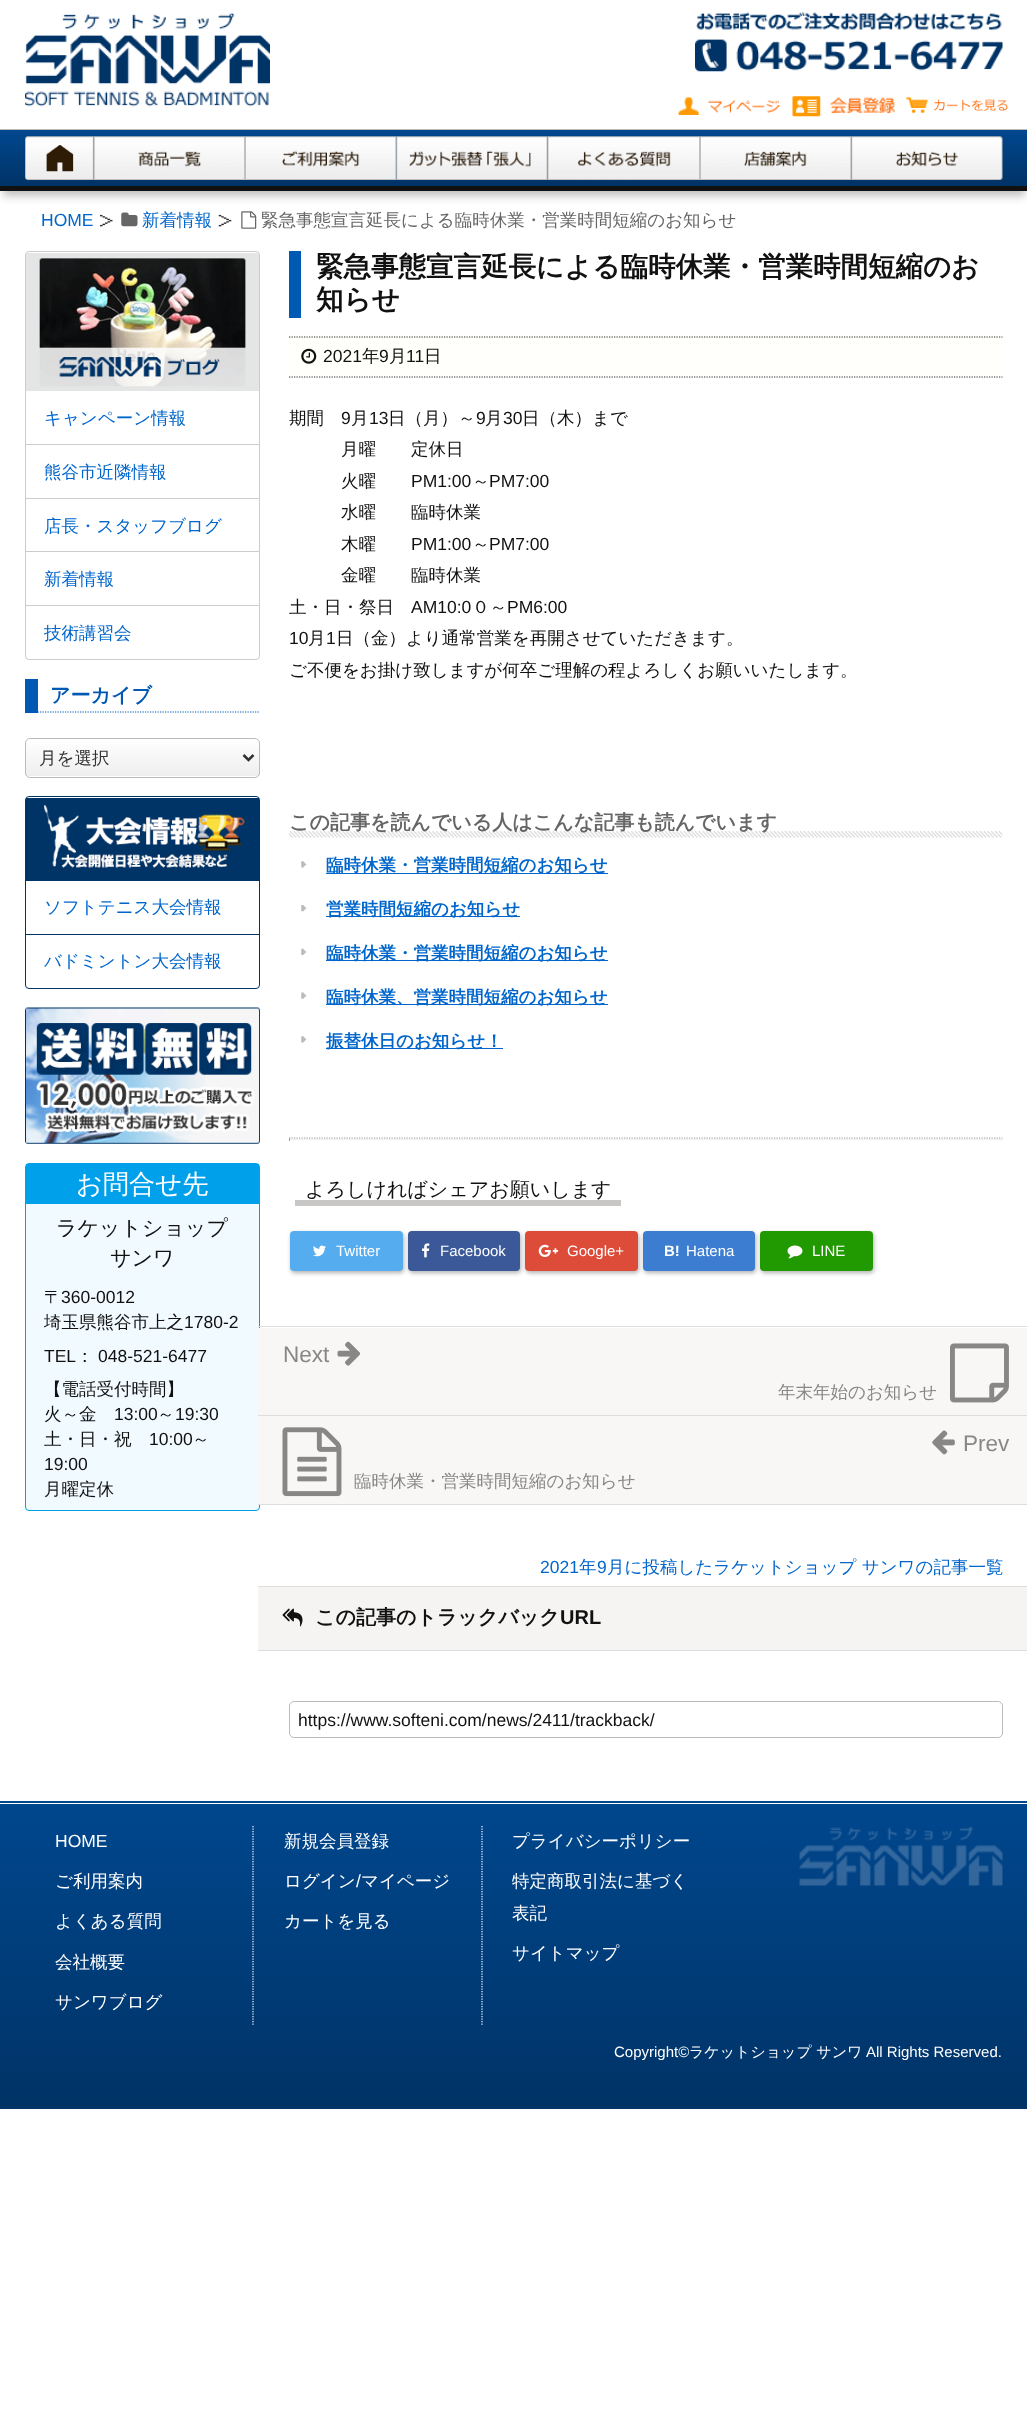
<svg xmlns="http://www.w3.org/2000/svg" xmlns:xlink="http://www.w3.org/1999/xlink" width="1027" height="2435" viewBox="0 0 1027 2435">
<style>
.cls-1{font:17.5px Liberation Sans;fill:#0066cc}
.cls-2{font:500 17.5px WenQuanYi Zen Hei;fill:#0066cc}
.cls-3{font:500 17.5px WenQuanYi Zen Hei;fill:#666666}
.cls-4{font:bold 20px WenQuanYi Zen Hei;fill:#0059b3}
.cls-5{font:500 17.5px WenQuanYi Zen Hei;fill:#333333}
.cls-6{font:500 26.25px WenQuanYi Zen Hei;fill:#ffffff}
.cls-7{font:500 21px WenQuanYi Zen Hei;fill:#111111}
.cls-8{font:500 17.5px WenQuanYi Zen Hei;fill:#111111}
.cls-9{font:17.5px Liberation Sans;fill:#111111}
.cls-10{font:bold 27.5px WenQuanYi Zen Hei;fill:#111111}
.cls-11{font:bold 20px WenQuanYi Zen Hei;fill:#666666}
.cls-12{font:bold 17.5px WenQuanYi Zen Hei;fill:#0066cc}
.cls-13{font:500 20px WenQuanYi Zen Hei;fill:#111111}
.cls-14{font:15px Liberation Sans;fill:#ffffff}
.cls-15{font:bold 15px Liberation Sans;fill:#ffffff}
.cls-16{font:22.5px Liberation Sans;fill:#888786}
.cls-17{font:500 17.5px WenQuanYi Zen Hei;fill:#888786}
.cls-18{font:bold 20px WenQuanYi Zen Hei;fill:#111111}
.cls-19{font:bold 20px Liberation Sans;fill:#111111}
.cls-20{font:17.5px Liberation Sans;fill:#ffffff}
.cls-21{font:500 17.5px WenQuanYi Zen Hei;fill:#ffffff}
.cls-22{font:500 15px WenQuanYi Zen Hei;fill:#ffffff}
</style>
<defs>
<linearGradient id="g1" gradientUnits="userSpaceOnUse" x1="514" y1="130" x2="514" y2="186"><stop offset="0" stop-color="#00478e"/><stop offset="1" stop-color="#003366"/></linearGradient>
<clipPath id="clip1"><rect x="25" y="738" width="235" height="40" rx="5"/></clipPath>
<linearGradient id="g2" gradientUnits="userSpaceOnUse" x1="143" y1="739" x2="143" y2="776"><stop offset="0" stop-color="#ffffff"/><stop offset="1" stop-color="#eeeeee"/></linearGradient>
<linearGradient id="g3" gradientUnits="userSpaceOnUse" x1="514" y1="1801" x2="514" y2="2109"><stop offset="0" stop-color="#00478e"/><stop offset="1" stop-color="#003366"/></linearGradient>
</defs>
<rect width="100%" height="100%" fill="#ffffff"/>
<image xlink:href="image0.png" x="25" y="12" width="245" height="95"/>
<image xlink:href="image1.png" x="695" y="12" width="308" height="60"/>
<image xlink:href="image2.png" x="678" y="97" width="102" height="18"/>
<image xlink:href="image3.png" x="792" y="96" width="103" height="21"/>
<image xlink:href="image4.png" x="906" y="97" width="102" height="16"/>
<rect fill="#000000" fill-opacity="0.25" filter="blur(4.5px)" x="3" y="139" width="1022" height="57"/>
<rect fill="url(#g1)" x="0" y="130" width="1027" height="56"/>
<rect fill="#bbbbbb" x="0" y="129" width="1027" height="1"/>
<rect fill="#111111" x="0" y="186" width="1027" height="5"/>
<image xlink:href="image5.png" x="25" y="136" width="69" height="44"/>
<image xlink:href="image6.png" x="93" y="136" width="152" height="44"/>
<image xlink:href="image7.png" x="245" y="136" width="152" height="44"/>
<image xlink:href="image8.png" x="396" y="136" width="152" height="44"/>
<image xlink:href="image9.png" x="547" y="136" width="153" height="44"/>
<image xlink:href="image10.png" x="700" y="136" width="152" height="44"/>
<image xlink:href="image11.png" x="851" y="136" width="152" height="44"/>
<image xlink:href="image12.png" x="100" y="214" width="13" height="13"/>
<image xlink:href="image13.png" x="121" y="212" width="17" height="15"/>
<image xlink:href="image14.png" x="218" y="214" width="14" height="13"/>
<image xlink:href="image15.png" x="241" y="211" width="16" height="18"/>
<rect fill="none" stroke="#cccccc" x="25.5" y="251.5" width="234" height="408" rx="3.5"/>
<rect fill="#e4e5e5" x="26" y="253" width="233" height="138"/>
<image xlink:href="image16.png" x="39" y="258" width="207" height="129"/>
<rect fill="#cccccc" x="26" y="444" width="233" height="1"/>
<rect fill="#cccccc" x="26" y="498" width="233" height="1"/>
<rect fill="#cccccc" x="26" y="551" width="233" height="1"/>
<rect fill="#cccccc" x="26" y="605" width="233" height="1"/>
<path fill="none" stroke="#0059b3" stroke-width="1.2" stroke-dasharray="1.25 1.25" d="M25 712H260"/>
<rect fill="#0059b3" x="25" y="679" width="13" height="34"/>
<g clip-path="url(#clip1)">
<rect fill="url(#g2)" x="25" y="739" width="235" height="37"/>
</g>
<rect fill="none" stroke="#bbbbbb" x="25.5" y="738.5" width="234" height="39" rx="4.5"/>
<path fill="none" stroke="#333333" stroke-width="2.5" d="M243.5 755L248.5 760L253.5 755"/>
<rect fill="none" stroke="#003366" x="25.5" y="796.5" width="234" height="192" rx="3.5"/>
<rect fill="#003366" x="26" y="798" width="233" height="83"/>
<image xlink:href="image17.png" x="44" y="805" width="201" height="63"/>
<rect fill="#003366" x="26" y="934" width="233" height="1"/>
<image xlink:href="image18.png" x="25" y="1007" width="235" height="137"/>
<rect fill="#f1fbff" stroke="#00a0ea" x="25.5" y="1163.5" width="234" height="347" rx="3.5"/>
<rect fill="#00a0ea" x="26" y="1164" width="233" height="40"/>
<rect fill="#0059b3" x="289" y="251" width="12" height="67"/>
<rect fill="#fffffc" x="289" y="336" width="714" height="42"/>
<path fill="none" stroke="#333333" stroke-width="1.2" stroke-dasharray="1.25 1.25" d="M289 337H1002.5"/>
<path fill="none" stroke="#333333" stroke-width="1.2" stroke-dasharray="1.25 1.25" d="M289 377H1002.5"/>
<image xlink:href="image19.png" x="301" y="348" width="16" height="16"/>
<image xlink:href="image20.png" x="288" y="831" width="715" height="7"/>
<image xlink:href="image21.png" x="301" y="861" width="6" height="7"/>
<rect fill="#0066cc" x="326" y="873" width="282" height="1"/>
<image xlink:href="image22.png" x="301" y="905" width="6" height="7"/>
<rect fill="#0066cc" x="326" y="916" width="194" height="1"/>
<image xlink:href="image23.png" x="301" y="948" width="6" height="7"/>
<rect fill="#0066cc" x="326" y="960" width="282" height="1"/>
<image xlink:href="image24.png" x="301" y="992" width="6" height="7"/>
<rect fill="#0066cc" x="326" y="1004" width="282" height="1"/>
<image xlink:href="image21.png" x="301" y="1036" width="6" height="7"/>
<rect fill="#0066cc" x="326" y="1048" width="177" height="1"/>
<path fill="none" stroke="#999999" stroke-width="1.2" stroke-dasharray="1.25 1.25" d="M289 1138H1002.5"/>
<rect fill="#eeeeee" x="1001" y="1138" width="1" height="3"/>
<rect fill="#eeeeee" x="289" y="1139" width="714" height="1"/>
<rect fill="#9f9f9f" x="289" y="1138" width="1" height="3"/>
<rect fill="#c8c7c6" x="295" y="1200" width="326" height="6"/>
<rect fill="#000000" fill-opacity="0.3" filter="blur(2px)" x="291" y="1233" width="113" height="40" rx="4"/>
<rect fill="#55acee" x="290" y="1231" width="113" height="40" rx="4"/>
<image xlink:href="image25.png" x="313" y="1245" width="13" height="12"/>
<rect fill="#000000" fill-opacity="0.3" filter="blur(2px)" x="409" y="1233" width="112" height="40" rx="4"/>
<rect fill="#3b5998" x="408" y="1231" width="112" height="40" rx="4"/>
<image xlink:href="image26.png" x="422" y="1243" width="8" height="15"/>
<rect fill="#000000" fill-opacity="0.3" filter="blur(2px)" x="526" y="1233" width="113" height="40" rx="4"/>
<rect fill="#dd4b39" x="525" y="1231" width="113" height="40" rx="4"/>
<image xlink:href="image27.png" x="538" y="1244" width="21" height="13"/>
<rect fill="#000000" fill-opacity="0.3" filter="blur(2px)" x="644" y="1233" width="112" height="40" rx="4"/>
<rect fill="#3c7dd1" x="643" y="1231" width="112" height="40" rx="4"/>
<rect fill="#000000" fill-opacity="0.3" filter="blur(2px)" x="761" y="1233" width="113" height="40" rx="4"/>
<rect fill="#219900" x="760" y="1231" width="113" height="40" rx="4"/>
<image xlink:href="image28.png" x="787" y="1245" width="16" height="14"/>
<rect fill="#dddddd" x="258" y="1326" width="769" height="1"/>
<rect fill="#dddddd" x="258" y="1415" width="769" height="1"/>
<rect fill="#f8f7f6" x="258" y="1328" width="769" height="87"/>
<image xlink:href="image29.png" x="337" y="1341" width="24" height="25"/>
<image xlink:href="image30.png" x="950" y="1343" width="59" height="60"/>
<rect fill="#dddddd" x="258" y="1504" width="769" height="1"/>
<rect fill="#f8f7f6" x="258" y="1416" width="769" height="88"/>
<image xlink:href="image31.png" x="282" y="1427" width="60" height="70"/>
<image xlink:href="image32.png" x="932" y="1430" width="23" height="25"/>
<rect fill="#f5f4f3" x="258" y="1587" width="769" height="63"/>
<rect fill="#dddddd" x="258" y="1586" width="769" height="1"/>
<rect fill="#dddddd" x="258" y="1650" width="769" height="1"/>
<image xlink:href="image33.png" x="282" y="1608" width="21" height="19"/>
<rect fill="none" stroke="#bbbbbb" x="289.5" y="1701.5" width="713" height="36" rx="4.5"/>
<rect fill="url(#g3)" x="0" y="1801" width="1027" height="308"/>
<rect fill="#ffffff" x="0" y="1803" width="1027" height="1"/>
<path fill="none" stroke="#ffffff" stroke-width="1.2" stroke-dasharray="1.25 1.25" d="M253 1826V2026"/>
<path fill="none" stroke="#ffffff" stroke-width="1.2" stroke-dasharray="1.25 1.25" d="M482 1826V2026"/>
<image xlink:href="image34.png" x="799" y="1826" width="204" height="60"/>
<text class="cls-1" x="41" y="226">HOME</text>
<text class="cls-2" x="142" y="226">新着情報</text>
<text class="cls-3" x="261" y="226">緊急事態宣言延長による臨時休業・営業時間短縮のお知らせ</text>
<text class="cls-2" x="44" y="424">キャンペーン情報</text>
<text class="cls-2" x="44" y="478">熊谷市近隣情報</text>
<text class="cls-2" x="44" y="532">店長・スタッフブログ</text>
<text class="cls-2" x="44" y="585">新着情報</text>
<text class="cls-2" x="44" y="639">技術講習会</text>
<text class="cls-4" x="50" y="702">アーカイブ</text>
<text class="cls-5" x="39" y="764">月を選択</text>
<text class="cls-2" x="44" y="913">ソフトテニス大会情報</text>
<text class="cls-2" x="44" y="967">バドミントン大会情報</text>
<text class="cls-6" x="76" y="1193">お問合せ先</text>
<text class="cls-7" x="56" y="1235">ラケットショップ</text>
<text class="cls-7" x="110" y="1265">サンワ</text>
<text class="cls-8" x="44" y="1303">〒</text>
<text class="cls-9" x="61" y="1303">360-0012</text>
<text class="cls-8" x="44" y="1328">埼玉県熊谷市上之</text>
<text class="cls-9" x="184" y="1328">1780-2</text>
<text class="cls-9" x="44" y="1362">TEL</text>
<text class="cls-8" x="76" y="1362">：</text>
<text class="cls-9" x="98" y="1362">048-521-6477</text>
<text class="cls-8"><tspan x="44" y="1395">【電話受付時間】</tspan><tspan x="44" y="1420">火～金</tspan></text>
<text class="cls-9" x="114" y="1420">13:00</text>
<text class="cls-8" x="157" y="1420">～</text>
<text class="cls-9" x="175" y="1420">19:30</text>
<text class="cls-8" x="44" y="1445">土・日・祝</text>
<text class="cls-9" x="149" y="1445">10:00</text>
<text class="cls-8" x="192" y="1445">～</text>
<text class="cls-9" x="44" y="1470">19:00</text>
<text class="cls-8" x="44" y="1495">月曜定休</text>
<text class="cls-10"><tspan x="316" y="276">緊急事態宣言延長による臨時休業・営業時間短縮のお</tspan><tspan x="316" y="309">知らせ</tspan></text>
<text class="cls-9" x="323" y="362">2021</text>
<text class="cls-8" x="362" y="362">年</text>
<text class="cls-9" x="379" y="362">9</text>
<text class="cls-8" x="389" y="362">月</text>
<text class="cls-9" x="406" y="362">11</text>
<text class="cls-8" x="424" y="362">日</text>
<text class="cls-8" x="289" y="424">期間</text>
<text class="cls-9" x="341" y="424">9</text>
<text class="cls-8" x="351" y="424">月</text>
<text class="cls-9" x="369" y="424">13</text>
<text class="cls-8" x="388" y="424">日（月）～</text>
<text class="cls-9" x="476" y="424">9</text>
<text class="cls-8" x="485" y="424">月</text>
<text class="cls-9" x="503" y="424">30</text>
<text class="cls-8" x="522" y="424">日（木）まで</text>
<text class="cls-8"><tspan x="341" y="455">月曜　　定休日</tspan><tspan x="341" y="487">火曜</tspan></text>
<text class="cls-9" x="411" y="487">PM1:00</text>
<text class="cls-8" x="472" y="487">～</text>
<text class="cls-9" x="489" y="487">PM7:00</text>
<text class="cls-8"><tspan x="341" y="518">水曜　　臨時休業</tspan><tspan x="341" y="550">木曜</tspan></text>
<text class="cls-9" x="411" y="550">PM1:00</text>
<text class="cls-8" x="472" y="550">～</text>
<text class="cls-9" x="489" y="550">PM7:00</text>
<text class="cls-8" x="341" y="581">金曜　　臨時休業</text>
<text class="cls-8" x="289" y="613">土・日・祭日</text>
<text class="cls-9" x="411" y="613">AM10:0</text>
<text class="cls-8" x="472" y="613">０～</text>
<text class="cls-9" x="507" y="613">PM6:00</text>
<text class="cls-9" x="289" y="644">10</text>
<text class="cls-8" x="308" y="644">月</text>
<text class="cls-9" x="326" y="644">1</text>
<text class="cls-8" x="336" y="644">日（金）より通常営業を再開させていただきます。</text>
<text class="cls-8" x="289" y="676">ご不便をお掛け致しますが何卒ご理解の程よろしくお願いいたします。</text>
<text class="cls-11" x="289" y="829">この記事を読んでいる人はこんな記事も読んでいます</text>
<text class="cls-12" x="326" y="871">臨時休業・営業時間短縮のお知らせ</text>
<text class="cls-12" x="326" y="915">営業時間短縮のお知らせ</text>
<text class="cls-12" x="326" y="959">臨時休業・営業時間短縮のお知らせ</text>
<text class="cls-12" x="326" y="1003">臨時休業、営業時間短縮のお知らせ</text>
<text class="cls-12" x="326" y="1047">振替休日のお知らせ！</text>
<text class="cls-13" x="305" y="1196">よろしければシェアお願いします</text>
<text class="cls-14" x="336" y="1256">Twitter</text>
<text class="cls-14" x="440" y="1256">Facebook</text>
<text class="cls-14" x="567" y="1256">Google+</text>
<text class="cls-15" x="664" y="1256">B!</text>
<text class="cls-14" x="686" y="1256">Hatena</text>
<text class="cls-14" x="812" y="1256">LINE</text>
<text class="cls-16" x="283" y="1362">Next</text>
<text class="cls-17" x="778" y="1398">年末年始のお知らせ</text>
<text class="cls-16" x="963" y="1451">Prev</text>
<text class="cls-17" x="354" y="1487">臨時休業・営業時間短縮のお知らせ</text>
<text class="cls-1" x="540" y="1573">2021</text>
<text class="cls-2" x="579" y="1573">年</text>
<text class="cls-1" x="597" y="1573">9</text>
<text class="cls-2" x="607" y="1573">月に投稿したラケットショップ サンワの記事一覧</text>
<text class="cls-18" x="315" y="1624">この記事のトラックバック</text>
<text class="cls-19" x="560" y="1624">URL</text>
<text class="cls-9" x="298" y="1726">https://www.softeni.com/news/2411/trackback/</text>
<text class="cls-20" x="55" y="1847">HOME</text>
<text class="cls-21" x="55" y="1887">ご利用案内</text>
<text class="cls-21" x="55" y="1927">よくある質問</text>
<text class="cls-21" x="55" y="1968">会社概要</text>
<text class="cls-21" x="55" y="2008">サンワブログ</text>
<text class="cls-21" x="284" y="1847">新規会員登録</text>
<text class="cls-21" x="284" y="1887">ログイン</text>
<text class="cls-20" x="356" y="1887">/</text>
<text class="cls-21" x="361" y="1887">マイページ</text>
<text class="cls-21" x="284" y="1927">カートを見る</text>
<text class="cls-21" x="512" y="1847">プライバシーポリシー</text>
<text class="cls-21"><tspan x="512" y="1887">特定商取引法に基づく</tspan><tspan x="512" y="1919">表記</tspan></text>
<text class="cls-21" x="512" y="1959">サイトマップ</text>
<text class="cls-14" x="614" y="2057">Copyright©</text>
<text class="cls-22" x="689" y="2057">ラケットショップ サンワ</text>
<text class="cls-14" x="866" y="2057">All Rights Reserved.</text>
</svg>
